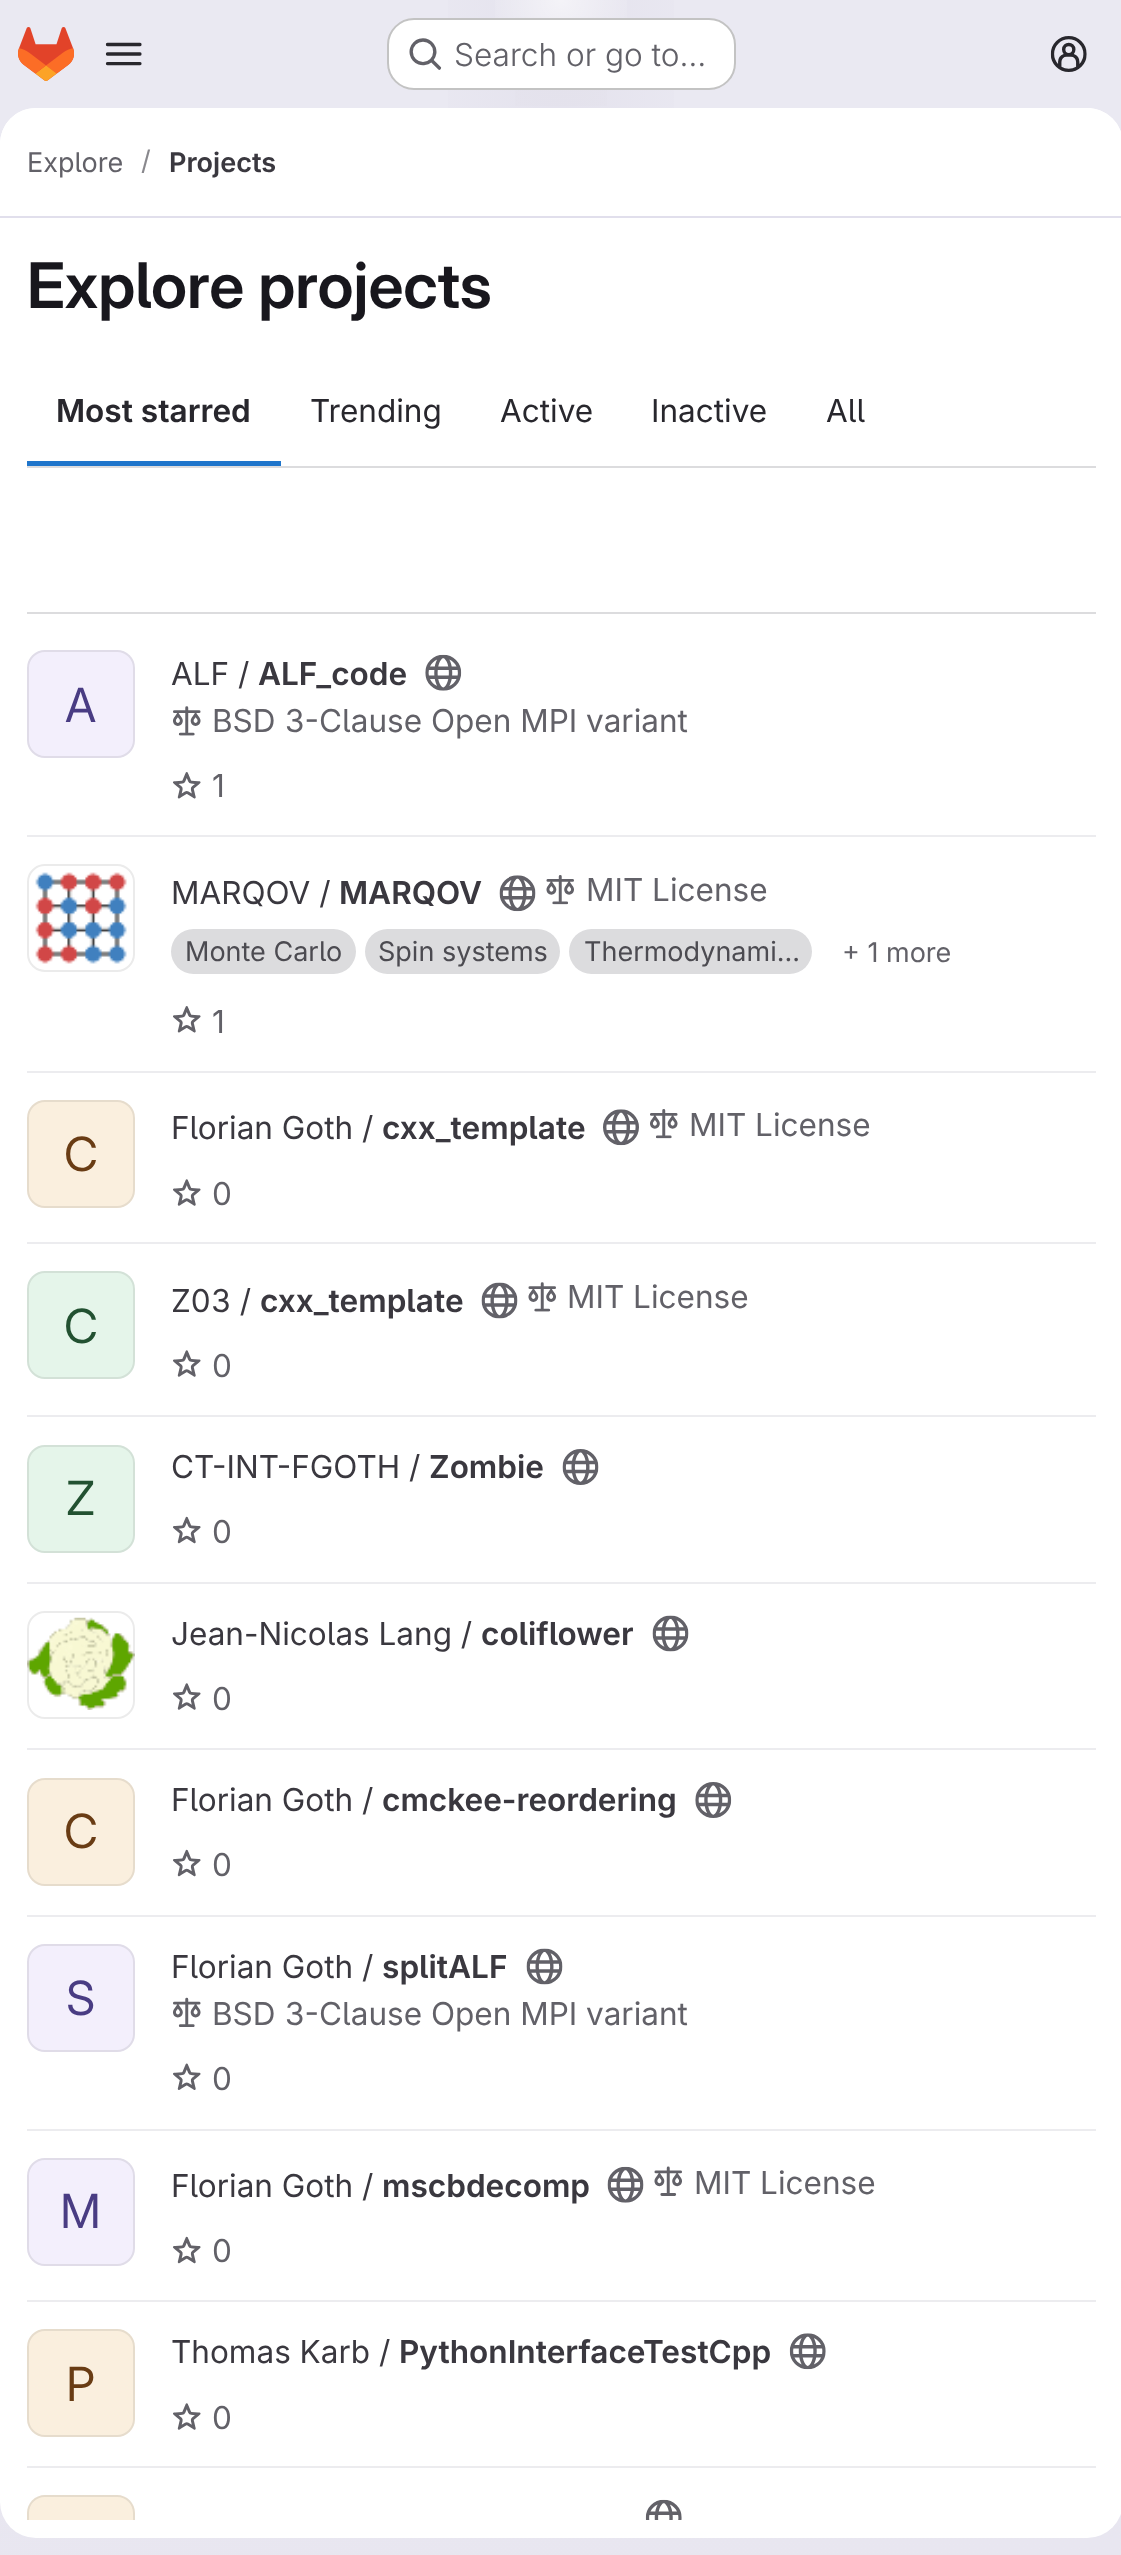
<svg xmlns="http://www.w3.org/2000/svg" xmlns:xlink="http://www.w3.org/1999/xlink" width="1121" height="2555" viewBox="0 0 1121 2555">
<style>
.cls-1{font:300 31.5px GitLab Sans;fill:#626168}
.cls-2{font:27px GitLab Sans;fill:#626168}
.cls-3{font:27px GitLab Sans;fill:#89888d}
.cls-4{font:600 27px 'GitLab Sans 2';fill:#3a383f}
.cls-5{font:600 63px GitLab Sans;fill:#18171d}
.cls-6{font:600 31.5px 'GitLab Sans 2';fill:#28272d}
.cls-7{font:31.5px GitLab Sans;fill:#28272d}
.cls-8{font:47px 'GitLab Sans 2';fill:#493c83}
.cls-9{font:31.5px GitLab Sans;fill:#3a383f}
.cls-10{font:600 31.5px 'GitLab Sans 2';fill:#3a383f}
.cls-11{font:31.5px GitLab Sans;fill:#626168}
.cls-12{font:27px GitLab Sans;fill:#4c4b51}
.cls-13{font:47px 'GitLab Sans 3';fill:#693c14}
.cls-14{font:47px 'GitLab Sans 3';fill:#225131}
.cls-15{font:47px 'GitLab Sans 2';fill:#225131}
.cls-16{font:47px 'GitLab Sans 2';fill:#693c14}
</style>
<defs>
<linearGradient id="g1" gradientUnits="userSpaceOnUse" x1="797" y1="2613" x2="326" y2="-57"><stop offset="0" stop-color="#e8e6f0"/><stop offset="0.7" stop-color="#eae9f2"/></linearGradient>
<radialGradient id="g2" gradientUnits="userSpaceOnUse" cx="0" cy="0" r="1" gradientTransform="matrix(561 0 0 2556 561 0)"><stop offset="0" stop-color="#e4e2ed"/><stop offset="0.28" stop-color="#e4e2ed" stop-opacity="0"/></radialGradient>
<radialGradient id="g3" gradientUnits="userSpaceOnUse" cx="0" cy="0" r="1" gradientTransform="matrix(561 0 0 2556 561 0)"><stop offset="0" stop-color="#e4e2ec"/><stop offset="0.2" stop-color="#e4e2ec" stop-opacity="0"/></radialGradient>
<radialGradient id="g4" gradientUnits="userSpaceOnUse" cx="561" cy="0" r="2617"><stop offset="0" stop-color="#ffffff" stop-opacity="0.6"/><stop offset="0.03" stop-color="#ffffff" stop-opacity="0"/></radialGradient>
<clipPath id="clip1"><rect x="0" y="218" width="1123" height="2302"/></clipPath>
</defs>
<rect width="100%" height="100%" fill="#ffffff"/>
<rect fill="url(#g1)" x="0" y="0" width="1121" height="2555"/>
<rect fill="url(#g2)" x="448" y="0" width="226" height="108"/>
<rect fill="url(#g3)" x="515" y="17" width="92" height="89"/>
<rect fill="url(#g4)" x="495" y="0" width="132" height="18"/>
<image xlink:href="image0.png" x="18" y="27" width="56" height="54"/>
<image xlink:href="image1.png" x="105" y="42" width="37" height="24"/>
<rect fill="#ffffff" x="387" y="18" width="349" height="72" rx="27"/>
<rect fill="none" stroke="#050506" stroke-opacity="0.24" stroke-width="2" x="388" y="19" width="347" height="70" rx="26"/>
<image xlink:href="image2.png" x="409" y="38" width="33" height="32"/>
<image xlink:href="image3.png" x="1050" y="36" width="37" height="36"/>
<rect fill="#ffffff" x="0" y="108" width="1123" height="2430" rx="36"/>
<path fill="#ffffff" d="M36 108H1087C1107 108 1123 124 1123 144V218H0V144C0 124 16 108 36 108Z"/>
<rect fill="#e1dfec" x="0" y="216" width="1121" height="2"/>
<rect fill="#1f75cb" x="27" y="461" width="254" height="5"/>
<rect fill="#dcdcde" x="27" y="466" width="1069" height="2"/>
<rect fill="#dcdcde" x="27" y="612" width="1069" height="2"/>
<rect fill="#ececef" x="27" y="835" width="1069" height="2"/>
<rect fill="#f3effc" x="27" y="650" width="108" height="108" rx="18"/>
<rect fill="none" stroke="#050506" stroke-opacity="0.08" stroke-width="2" x="28" y="651" width="106" height="106" rx="17"/>
<image xlink:href="image4.png" x="425" y="654" width="37" height="37"/>
<image xlink:href="image5.png" x="173" y="706" width="28" height="30"/>
<image xlink:href="image6.png" x="173" y="772" width="28" height="27"/>
<rect fill="#ececef" x="27" y="1071" width="1069" height="2"/>
<image xlink:href="image7.png" x="35" y="872" width="92" height="92"/>
<rect fill="none" stroke="#ebebeb" stroke-width="2" x="28" y="865" width="106" height="106" rx="17"/>
<image xlink:href="image8.png" x="499" y="875" width="37" height="37"/>
<image xlink:href="image9.png" x="546" y="875" width="28" height="30"/>
<rect fill="#dcdcde" x="171" y="929" width="185" height="45" rx="22.5"/>
<rect fill="#dcdcde" x="365" y="929" width="195" height="45" rx="22.5"/>
<rect fill="#dcdcde" x="569" y="929" width="243" height="45" rx="22.5"/>
<image xlink:href="image10.png" x="173" y="1006" width="28" height="27"/>
<rect fill="#ececef" x="27" y="1242" width="1069" height="2"/>
<rect fill="#faefde" x="27" y="1100" width="108" height="108" rx="18"/>
<rect fill="none" stroke="#050506" stroke-opacity="0.08" stroke-width="2" x="28" y="1101" width="106" height="106" rx="17"/>
<image xlink:href="image11.png" x="603" y="1109" width="36" height="37"/>
<image xlink:href="image12.png" x="650" y="1109" width="28" height="30"/>
<image xlink:href="image13.png" x="173" y="1179" width="28" height="27"/>
<rect fill="#ececef" x="27" y="1415" width="1069" height="2"/>
<rect fill="#e5f5ea" x="27" y="1271" width="108" height="108" rx="18"/>
<rect fill="none" stroke="#050506" stroke-opacity="0.08" stroke-width="2" x="28" y="1272" width="106" height="106" rx="17"/>
<image xlink:href="image14.png" x="481" y="1282" width="37" height="37"/>
<image xlink:href="image15.png" x="528" y="1282" width="28" height="30"/>
<image xlink:href="image13.png" x="173" y="1350" width="28" height="27"/>
<rect fill="#ececef" x="27" y="1582" width="1069" height="2"/>
<rect fill="#e5f5ea" x="27" y="1445" width="108" height="108" rx="18"/>
<rect fill="none" stroke="#050506" stroke-opacity="0.08" stroke-width="2" x="28" y="1446" width="106" height="106" rx="17"/>
<image xlink:href="image16.png" x="562" y="1449" width="37" height="36"/>
<image xlink:href="image17.png" x="173" y="1516" width="28" height="28"/>
<rect fill="#ececef" x="27" y="1748" width="1069" height="2"/>
<image xlink:href="image18.png" x="27" y="1617" width="108" height="93"/>
<rect fill="none" stroke="#050506" stroke-opacity="0.08" stroke-width="2" x="28" y="1612" width="106" height="106" rx="17"/>
<image xlink:href="image19.png" x="652" y="1615" width="37" height="37"/>
<image xlink:href="image13.png" x="173" y="1683" width="28" height="27"/>
<rect fill="#ececef" x="27" y="1915" width="1069" height="2"/>
<rect fill="#faefde" x="27" y="1778" width="108" height="108" rx="18"/>
<rect fill="none" stroke="#050506" stroke-opacity="0.08" stroke-width="2" x="28" y="1779" width="106" height="106" rx="17"/>
<image xlink:href="image20.png" x="695" y="1782" width="37" height="36"/>
<image xlink:href="image21.png" x="173" y="1849" width="28" height="28"/>
<rect fill="#ececef" x="27" y="2129" width="1069" height="2"/>
<rect fill="#f3effc" x="27" y="1944" width="108" height="108" rx="18"/>
<rect fill="none" stroke="#050506" stroke-opacity="0.08" stroke-width="2" x="28" y="1945" width="106" height="106" rx="17"/>
<image xlink:href="image22.png" x="526" y="1948" width="37" height="37"/>
<image xlink:href="image23.png" x="173" y="1997" width="28" height="30"/>
<image xlink:href="image24.png" x="173" y="2063" width="28" height="27"/>
<rect fill="#ececef" x="27" y="2300" width="1069" height="2"/>
<rect fill="#f3effc" x="27" y="2158" width="108" height="108" rx="18"/>
<rect fill="none" stroke="#050506" stroke-opacity="0.08" stroke-width="2" x="28" y="2159" width="106" height="106" rx="17"/>
<image xlink:href="image25.png" x="607" y="2166" width="37" height="37"/>
<image xlink:href="image26.png" x="654" y="2166" width="28" height="30"/>
<image xlink:href="image21.png" x="173" y="2236" width="28" height="28"/>
<rect fill="#ececef" x="27" y="2466" width="1069" height="2"/>
<rect fill="#faefde" x="27" y="2329" width="108" height="108" rx="18"/>
<rect fill="none" stroke="#050506" stroke-opacity="0.08" stroke-width="2" x="28" y="2330" width="106" height="106" rx="17"/>
<image xlink:href="image27.png" x="789" y="2333" width="37" height="37"/>
<image xlink:href="image13.png" x="173" y="2403" width="28" height="27"/>
<path fill="#faefde" d="M45 2495H117C127 2495 135 2503 135 2513V2520H27V2513C27 2503 35 2495 45 2495Z"/>
<g clip-path="url(#clip1)">
<path fill="#050506" fill-opacity="0.08" d="M45 2495C35 2495 27 2503 27 2513V2537H29V2513C29 2504 36 2497 45 2497H117C126 2497 133 2504 133 2513V2538H135V2513C135 2503 127 2495 117 2495Z"/>
</g>
<image xlink:href="image28.png" x="645" y="2499" width="37" height="21"/>
<text class="cls-1" x="454" y="66">Search or go to…</text>
<text class="cls-2" x="27" y="172">Explore</text>
<text class="cls-3" x="141" y="170">/</text>
<text class="cls-4" x="169" y="172">Projects</text>
<text class="cls-5" x="27" y="308">Explore projects</text>
<text class="cls-6" x="56" y="422">Most starred</text>
<text class="cls-7" x="310" y="422">Trending</text>
<text class="cls-7" x="500" y="422">Active</text>
<text class="cls-7" x="651" y="422">Inactive</text>
<text class="cls-7" x="826" y="422">All</text>
<text class="cls-8" x="65" y="722">A</text>
<text class="cls-9" x="171" y="685">ALF /</text>
<text class="cls-10" x="258" y="685">ALF_code</text>
<text class="cls-11" x="212" y="732">BSD 3-Clause Open MPI variant</text>
<text class="cls-11" x="212" y="797">1</text>
<text class="cls-9" x="171" y="904">MARQOV /</text>
<text class="cls-10" x="339" y="904">MARQOV</text>
<text class="cls-11" x="586" y="901">MIT License</text>
<text class="cls-12" x="185" y="961">Monte Carlo</text>
<text class="cls-12" x="378" y="961">Spin systems</text>
<text class="cls-12" x="584" y="961">Thermodynami...</text>
<text class="cls-2" x="842" y="962">+ 1 more</text>
<text class="cls-11" x="212" y="1033">1</text>
<text class="cls-13" x="64" y="1171">C</text>
<text class="cls-9" x="171" y="1139">Florian Goth /</text>
<text class="cls-10" x="382" y="1139">cxx_template</text>
<text class="cls-11" x="689" y="1136">MIT License</text>
<text class="cls-11" x="212" y="1205">0</text>
<text class="cls-14" x="64" y="1343">C</text>
<text class="cls-9" x="171" y="1312">Z03 /</text>
<text class="cls-10" x="260" y="1312">cxx_template</text>
<text class="cls-11" x="567" y="1308">MIT License</text>
<text class="cls-11" x="212" y="1377">0</text>
<text class="cls-15" x="66" y="1515">Z</text>
<text class="cls-9" x="171" y="1478">CT-INT-FGOTH /</text>
<text class="cls-10" x="429" y="1478">Zombie</text>
<text class="cls-11" x="212" y="1543">0</text>
<text class="cls-9" x="171" y="1645">Jean-Nicolas Lang /</text>
<text class="cls-10" x="481" y="1645">coliflower</text>
<text class="cls-11" x="212" y="1710">0</text>
<text class="cls-13" x="64" y="1848">C</text>
<text class="cls-9" x="171" y="1811">Florian Goth /</text>
<text class="cls-10" x="382" y="1811">cmckee-reordering</text>
<text class="cls-11" x="212" y="1876">0</text>
<text class="cls-8" x="66" y="2015">S</text>
<text class="cls-9" x="171" y="1978">Florian Goth /</text>
<text class="cls-10" x="382" y="1978">splitALF</text>
<text class="cls-11" x="212" y="2025">BSD 3-Clause Open MPI variant</text>
<text class="cls-11" x="212" y="2090">0</text>
<text class="cls-8" x="60" y="2228">M</text>
<text class="cls-9" x="171" y="2197">Florian Goth /</text>
<text class="cls-10" x="382" y="2197">mscbdecomp</text>
<text class="cls-11" x="694" y="2194">MIT License</text>
<text class="cls-11" x="212" y="2262">0</text>
<text class="cls-16" x="66" y="2401">P</text>
<text class="cls-9" x="171" y="2363">Thomas Karb /</text>
<text class="cls-10" x="399" y="2363">PythonInterfaceTestCpp</text>
<text class="cls-11" x="212" y="2429">0</text>
</svg>
